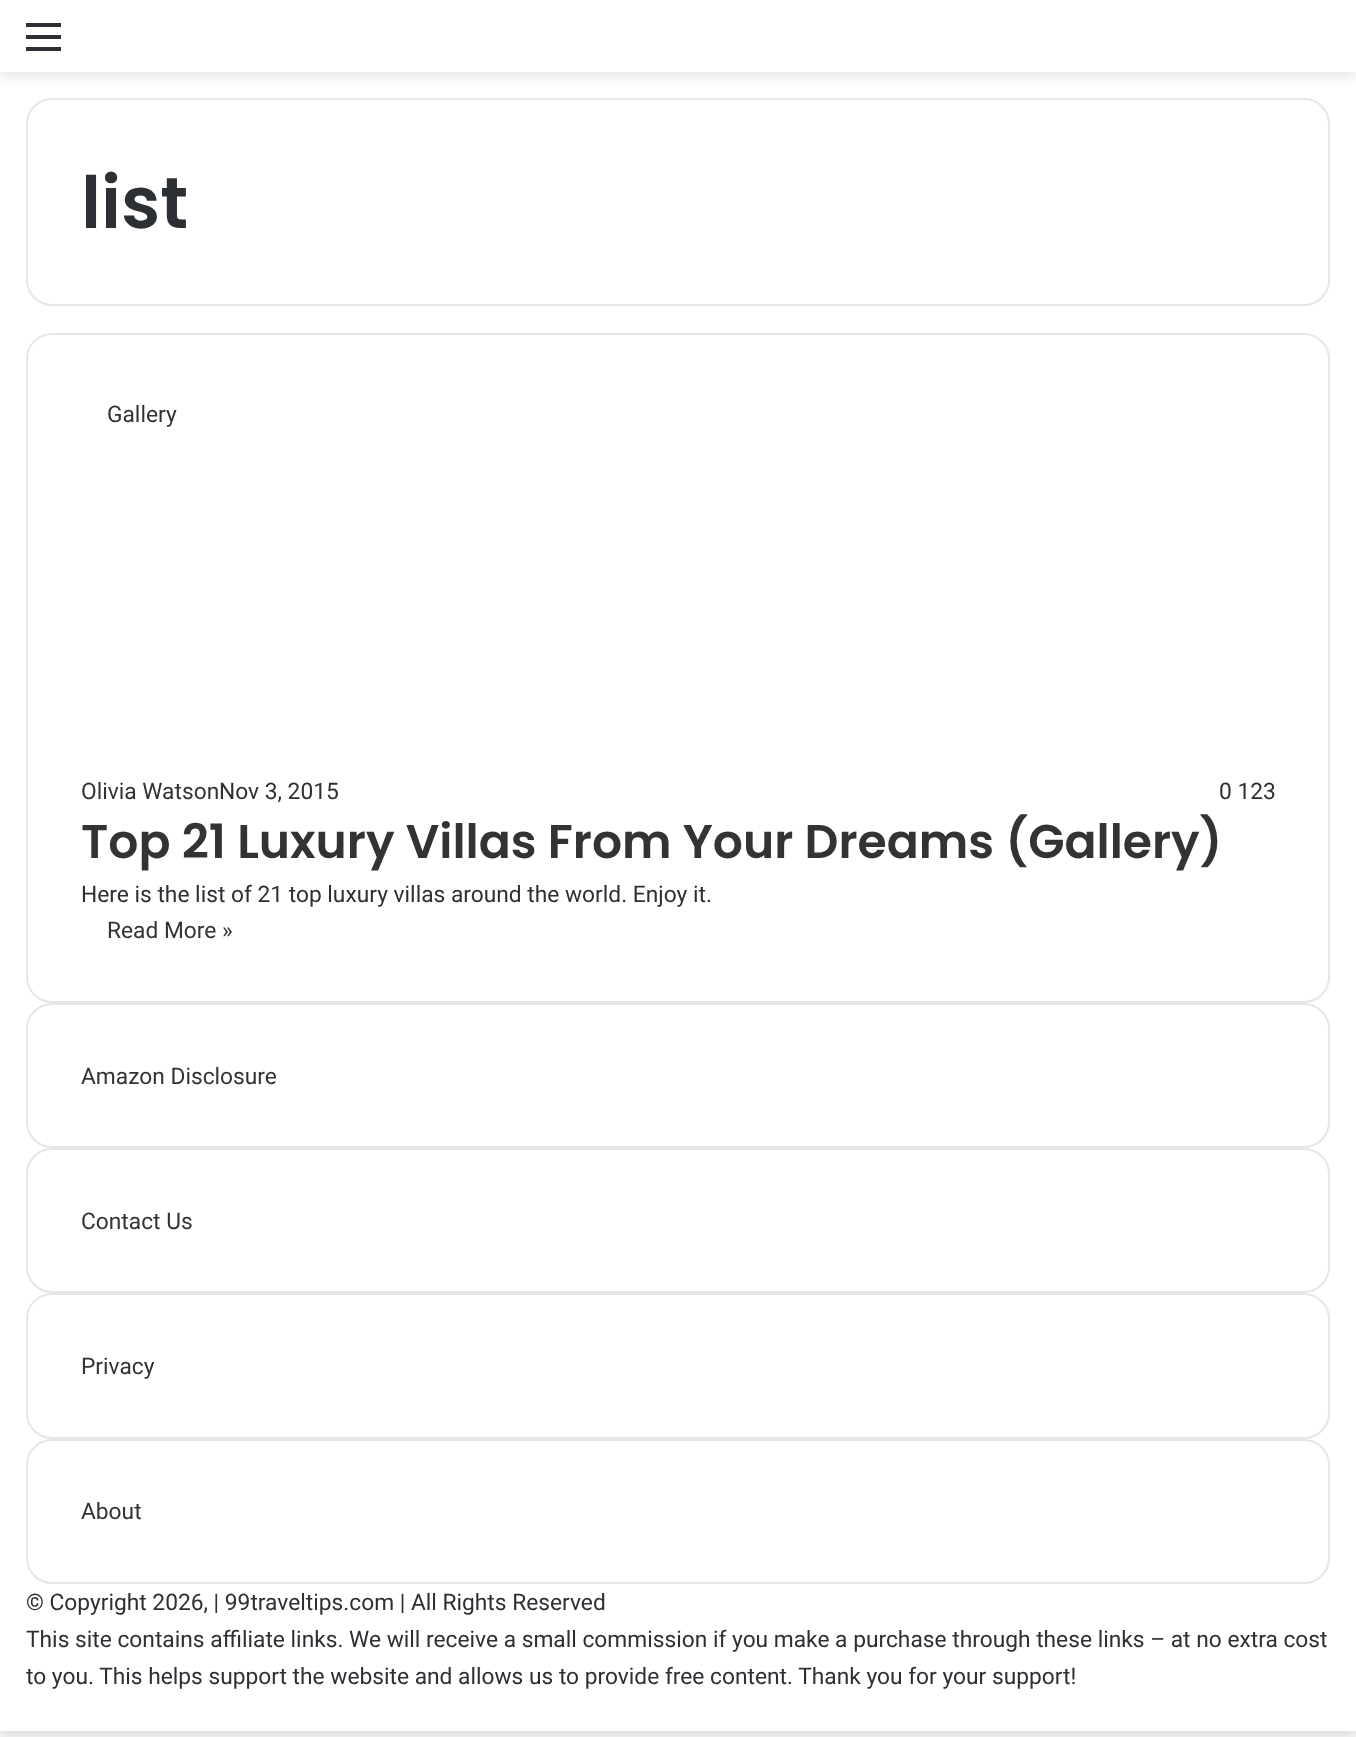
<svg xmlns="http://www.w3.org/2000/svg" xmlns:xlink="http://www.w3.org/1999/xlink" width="1356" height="1737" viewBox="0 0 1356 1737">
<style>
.cls-1{font:600 72px Poppins;fill:#2c2f34}
.cls-2{font:22.75px Roboto;fill:#333333}
.cls-3{font:22.75px Roboto;fill:#2c2f34}
.cls-4{font:600 47.25px Poppins;fill:#333333}
</style>
<rect width="100%" height="100%" fill="#f7f7f7"/>
<rect fill="#ababab" fill-opacity="0.5" filter="blur(6px)" x="0" y="2" width="1356" height="1731"/>
<rect fill="#ffffff" x="0" y="72" width="1356" height="1659"/>
<rect fill="#000000" fill-opacity="0.1" filter="blur(6px)" x="0" y="5" width="1356" height="72"/>
<rect fill="#ffffff" x="0" y="0" width="1356" height="72"/>
<rect fill="#2c2f34" x="26" y="35" width="35" height="4"/>
<rect fill="#2c2f34" x="26" y="23" width="35" height="4"/>
<rect fill="#2c2f34" x="26" y="47" width="35" height="4"/>
<rect fill="none" stroke="#e6e6e6" stroke-width="2" x="27" y="99" width="1302" height="206" rx="25"/>
<rect fill="none" stroke="#e6e6e6" stroke-width="2" x="27" y="334" width="1302" height="668" rx="25"/>
<rect fill="none" stroke="#e6e6e6" stroke-width="2" x="27" y="1004" width="1302" height="143" rx="25"/>
<rect fill="none" stroke="#e6e6e6" stroke-width="2" x="27" y="1149" width="1302" height="143" rx="25"/>
<rect fill="none" stroke="#e6e6e6" stroke-width="2" x="27" y="1294" width="1302" height="144" rx="25"/>
<rect fill="none" stroke="#e6e6e6" stroke-width="2" x="27" y="1440" width="1302" height="143" rx="25"/>
<text class="cls-1" x="81" y="228">list</text>
<text class="cls-2" x="107" y="422">Gallery</text>
<text class="cls-2" x="81" y="799">Olivia Watson</text>
<text class="cls-3" x="219" y="799">Nov 3, 2015</text>
<text class="cls-3" x="1219" y="799">0 123</text>
<text class="cls-4" x="81" y="858">Top 21 Luxury Villas From Your Dreams (Gallery)</text>
<text class="cls-3" x="81" y="902">Here is the list of 21 top luxury villas around the world. Enjoy it.</text>
<text class="cls-2" x="107" y="938">Read More »</text>
<text class="cls-2" x="81" y="1084">Amazon Disclosure</text>
<text class="cls-2" x="81" y="1229">Contact Us</text>
<text class="cls-2" x="81" y="1374">Privacy</text>
<text class="cls-2" x="81" y="1519">About</text>
<text class="cls-3"><tspan x="26" y="1610">© Copyright 2026, | 99traveltips.com | All Rights Reserved</tspan><tspan x="26" y="1647">This site contains affiliate links. We will receive a small commission if you make a purchase through these links – at no extra cost</tspan><tspan x="26" y="1684">to you. This helps support the website and allows us to provide free content. Thank you for your support!</tspan></text>
</svg>
